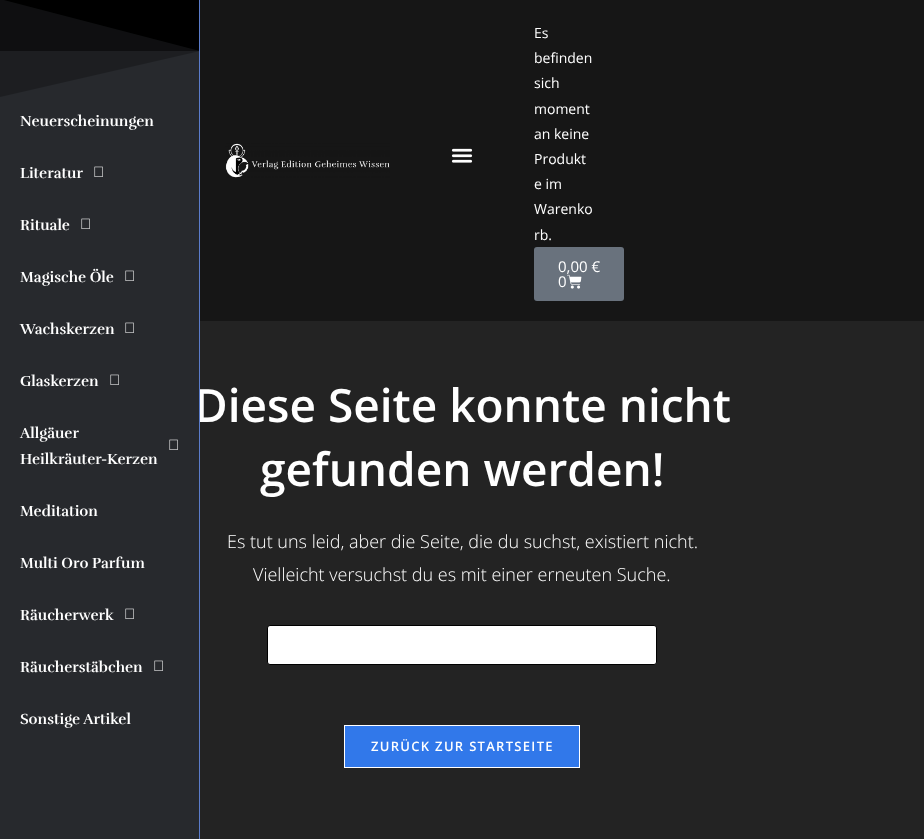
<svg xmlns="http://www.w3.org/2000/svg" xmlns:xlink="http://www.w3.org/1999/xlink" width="924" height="839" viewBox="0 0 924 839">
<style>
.cls-1{font:14px Open Sans;fill:#ffffff}
.cls-2{font:15px Open Sans;fill:#ffffff}
.cls-3{font:600 46px Open Sans;fill:#ffffff}
.cls-4{font:bold 15px Rufina;fill:#ffffff}
.cls-5{font:300 18px Open Sans;fill:#ffffff}
.cls-6{font:600 13px Open Sans;letter-spacing:1.3px;fill:#ffffff}
</style>
<defs>
<clipPath id="clip1"><rect x="0" y="0" width="199" height="98"/></clipPath>
</defs>
<rect width="100%" height="100%" fill="#232323"/>
<rect fill="#141517" x="0" y="0" width="199" height="51"/>
<g clip-path="url(#clip1)">
<path fill="#000000" d="M0-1H200V51Z"/>
</g>
<rect fill="#161616" x="200" y="0" width="724" height="321"/>
<image xlink:href="image1.png" x="225" y="143" width="165" height="35"/>
<image xlink:href="image2.png" x="451" y="148" width="22" height="15"/>
<rect fill="#69727d" x="534" y="247" width="90" height="54" rx="3"/>
<image xlink:href="image3.png" x="567" y="274" width="15" height="15"/>
<rect fill="#ffffff" stroke="#000000" x="267.5" y="625.5" width="389" height="39" rx="2.5"/>
<rect fill="#3178ea" stroke="#ffffff" x="344.5" y="725.5" width="235" height="42"/>
<text class="cls-1"><tspan x="534" y="38">Es</tspan><tspan x="534" y="63">befinden</tspan><tspan x="534" y="88">sich</tspan><tspan x="534" y="114">moment</tspan><tspan x="534" y="139">an keine</tspan><tspan x="534" y="164">Produkt</tspan><tspan x="534" y="189">e im</tspan><tspan x="534" y="214">Warenko</tspan><tspan x="534" y="240">rb.</tspan></text>
<text class="cls-2"><tspan x="558" y="272">0,00 €</tspan><tspan x="558" y="287">0</tspan></text>
<text class="cls-3" x="194" y="422">Diese Seite konnte nicht</text>
<rect fill="#27292d" x="0" y="51" width="199" height="788"/>
<text class="cls-4" x="20" y="724">Sonstige Artikel</text>
<image xlink:href="image0.png" x="154" y="660" width="9" height="11"/>
<text class="cls-4" x="20" y="672">Räucherstäbchen</text>
<image xlink:href="image0.png" x="125" y="608" width="9" height="11"/>
<text class="cls-4" x="20" y="620">Räucherwerk</text>
<text class="cls-4" x="20" y="568">Multi Oro Parfum</text>
<text class="cls-4" x="20" y="516">Meditation</text>
<image xlink:href="image0.png" x="169" y="439" width="9" height="11"/>
<text class="cls-4" x="20" y="464">Heilkräuter-Kerzen</text>
<text class="cls-4" x="20" y="438">Allgäuer</text>
<image xlink:href="image0.png" x="110" y="374" width="9" height="11"/>
<text class="cls-4" x="20" y="386">Glaskerzen</text>
<image xlink:href="image0.png" x="125" y="322" width="9" height="11"/>
<text class="cls-4" x="20" y="334">Wachskerzen</text>
<image xlink:href="image0.png" x="125" y="270" width="9" height="11"/>
<text class="cls-4" x="20" y="282">Magische Öle</text>
<image xlink:href="image0.png" x="81" y="218" width="9" height="11"/>
<text class="cls-4" x="20" y="230">Rituale</text>
<image xlink:href="image0.png" x="94" y="166" width="9" height="11"/>
<text class="cls-4" x="20" y="178">Literatur</text>
<text class="cls-4" x="20" y="126">Neuerscheinungen</text>
<g clip-path="url(#clip1)">
<path fill="#000000" fill-opacity="0.25" d="M200-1H0V97L200 51Z"/>
</g>
<rect fill="#5b7ccb" x="199" y="0" width="1" height="839"/>
<text class="cls-3" x="260" y="486">gefunden werden!</text>
<text class="cls-5" x="227" y="548">Es tut uns leid, aber die Seite, die du suchst, existiert nicht.</text>
<text class="cls-5" x="253" y="581">Vielleicht versuchst du es mit einer erneuten Suche.</text>
<text class="cls-6" x="371" y="751">ZURÜCK ZUR STARTSEITE</text>
</svg>
